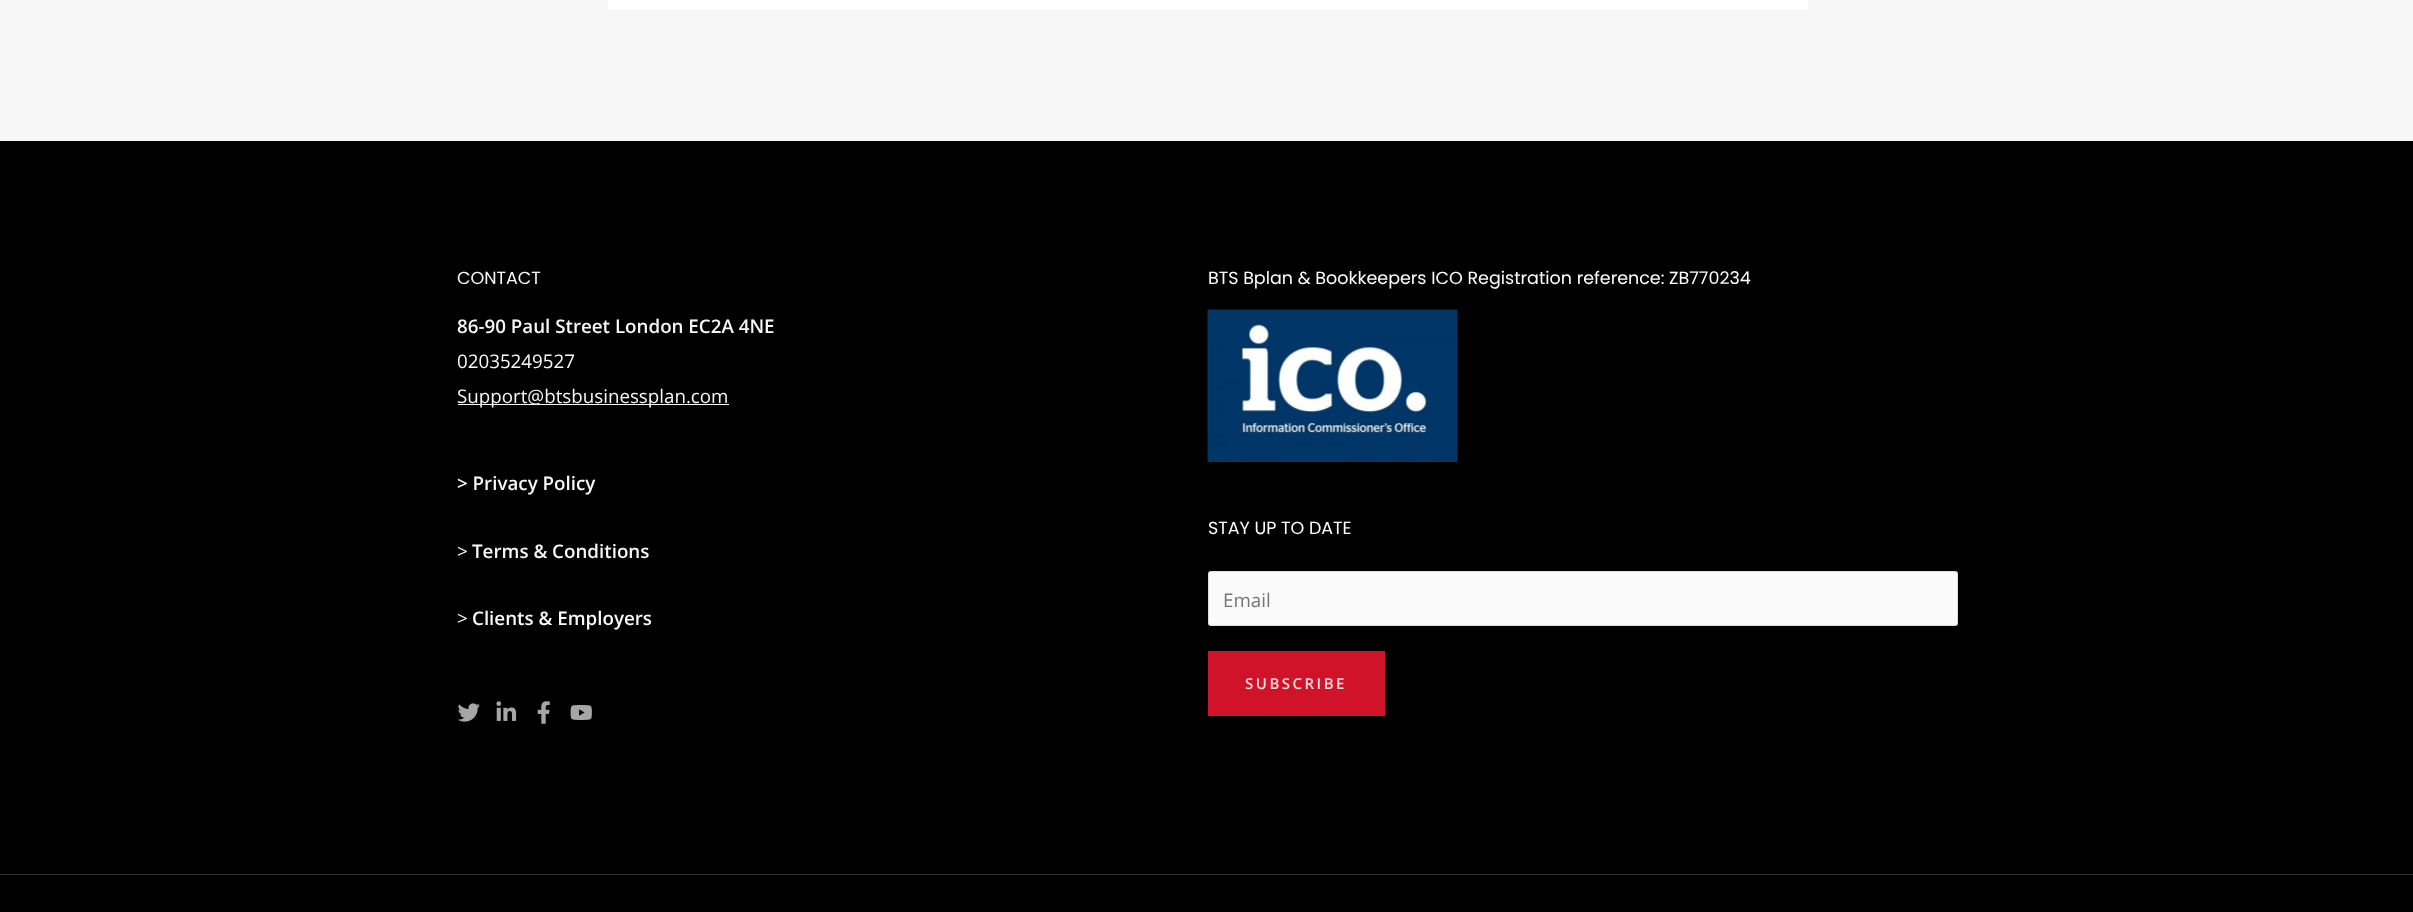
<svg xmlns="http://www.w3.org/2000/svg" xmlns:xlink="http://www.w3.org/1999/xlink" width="2413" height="912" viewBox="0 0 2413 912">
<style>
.cls-1{font:17.5px Poppins;fill:#f7f7f7}
.cls-2{font:600 18.75px Open Sans;fill:#f7f7f7}
.cls-3{font:18.75px Open Sans;fill:#f7f7f7}
.cls-4{font:17.5px Poppins;fill:#fdfdfd}
.cls-5{font:18.75px Open Sans;fill:#757575}
.cls-6{font:600 15px Open Sans;letter-spacing:2.5px;fill:#f8dcdf}
</style>
<rect width="100%" height="100%" fill="#f7f7f7"/>
<rect fill="#ffffff" x="608" y="0" width="1200" height="10"/>
<rect fill="#000000" x="0" y="141" width="2413" height="771"/>
<rect fill="#f7f7f7" x="458" y="404" width="271" height="1"/>
<image xlink:href="image0.png" x="458" y="703" width="22" height="19"/>
<image xlink:href="image1.png" x="496" y="701" width="21" height="20"/>
<image xlink:href="image2.png" x="537" y="701" width="13" height="23"/>
<image xlink:href="image3.png" x="570" y="705" width="22" height="15"/>
<image xlink:href="image4.png" x="1207" y="309" width="251" height="153"/>
<rect fill="#fafafa" stroke="#dddddd" x="1208.5" y="571.5" width="749" height="54" rx="2"/>
<rect fill="#d11329" x="1208" y="651" width="177" height="65"/>
<rect fill="#333333" x="0" y="874" width="2413" height="1"/>
<text class="cls-1" x="457" y="284">CONTACT</text>
<text class="cls-2" x="457" y="333">86-90 Paul Street London EC2A 4NE</text>
<text class="cls-3"><tspan x="457" y="368">02035249527</tspan><tspan x="457" y="403">Support@btsbusinessplan.com</tspan></text>
<text class="cls-2" x="457" y="490">&gt; Privacy Policy</text>
<text class="cls-3" x="457" y="558">&gt;</text>
<text class="cls-2" x="472" y="558">Terms &amp; Conditions</text>
<text class="cls-3" x="457" y="625">&gt;</text>
<text class="cls-2" x="472" y="625">Clients &amp; Employers</text>
<text class="cls-4" x="1208" y="284">BTS Bplan &amp; Bookkeepers ICO Registration reference: ZB770234</text>
<text class="cls-4" x="1208" y="534">STAY UP TO DATE</text>
<text class="cls-5" x="1223" y="607">Email</text>
<text class="cls-6" x="1245" y="689">SUBSCRIBE</text>
</svg>
